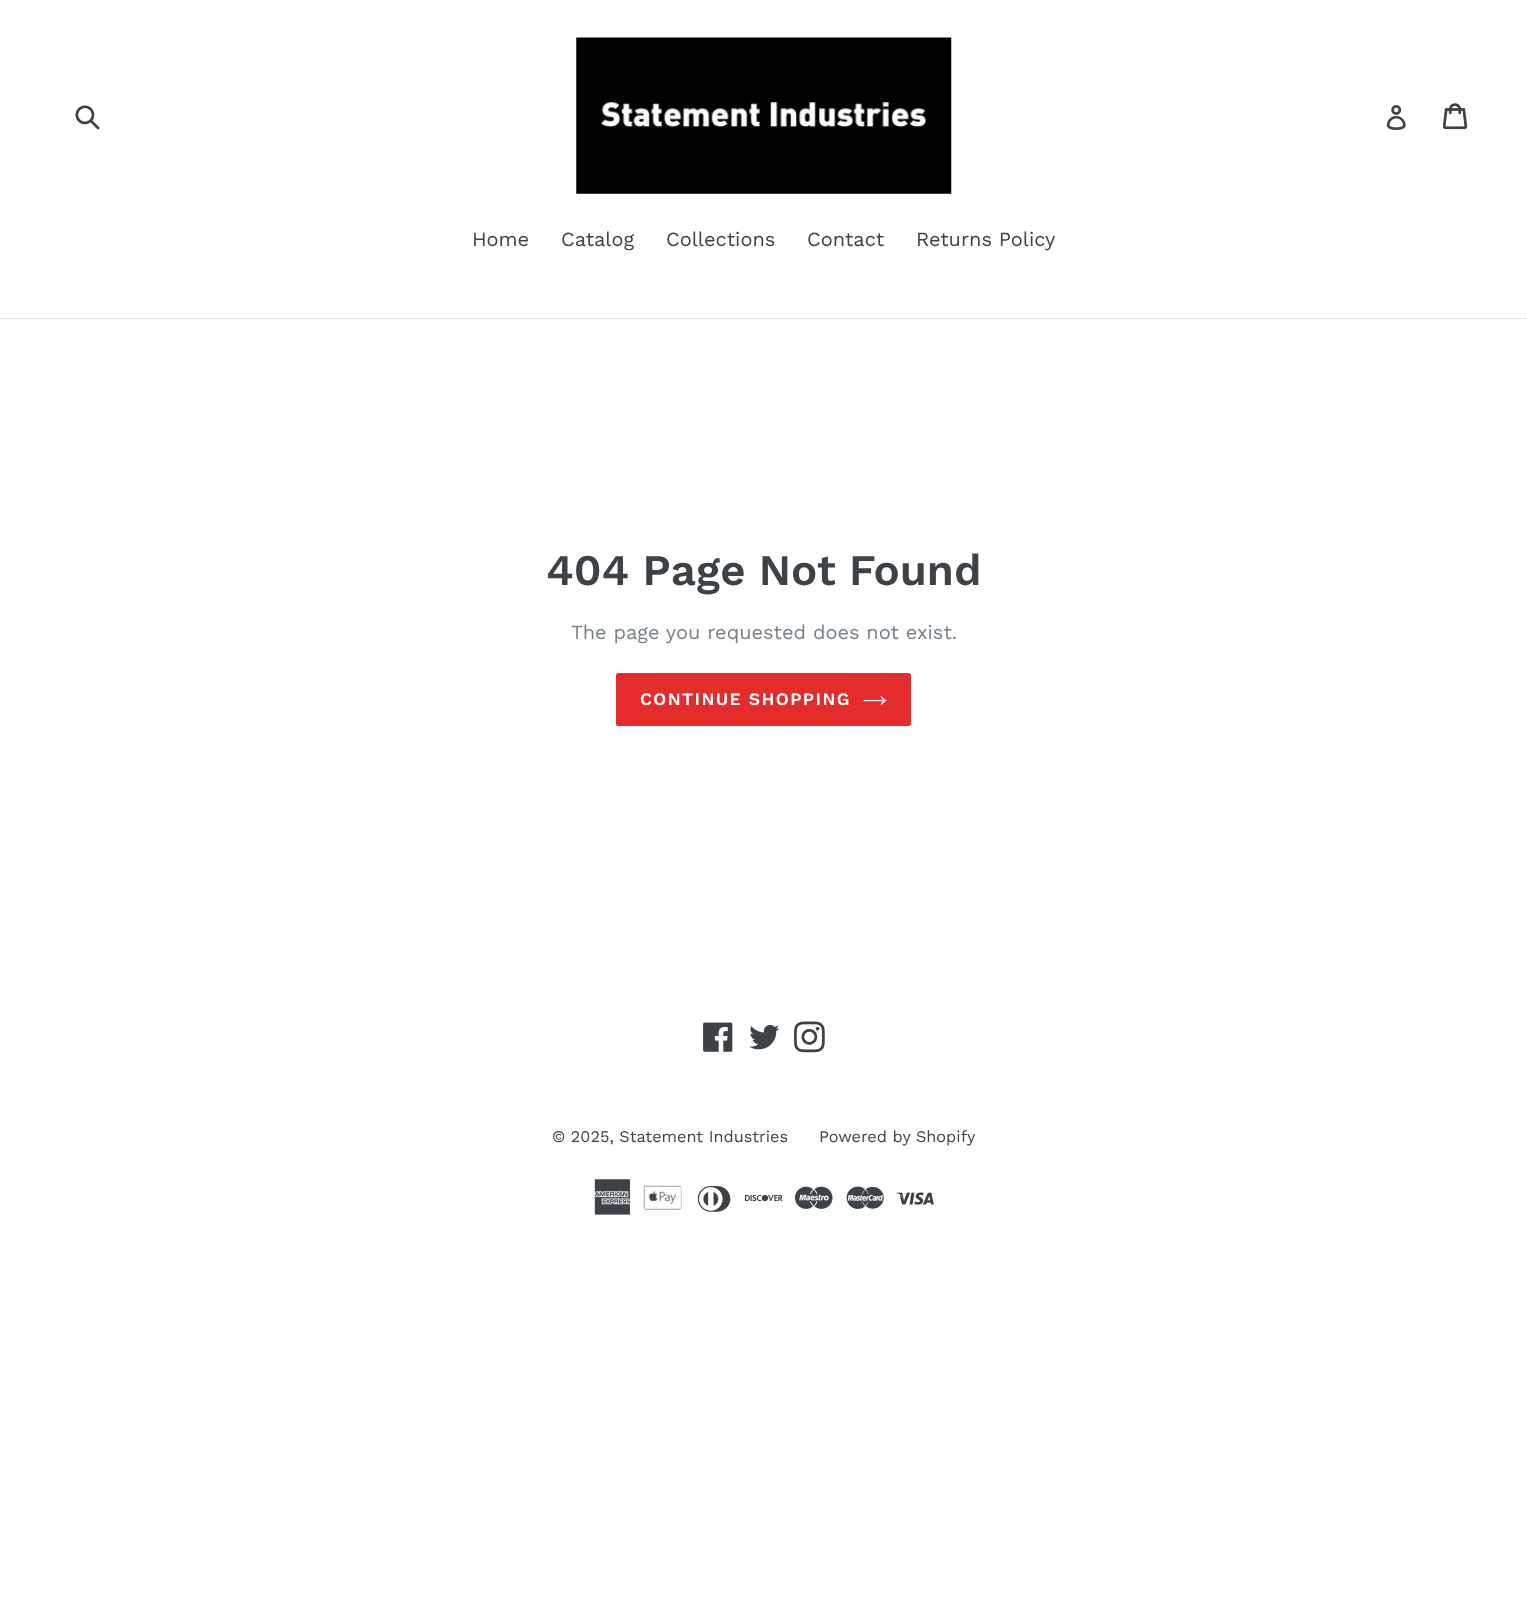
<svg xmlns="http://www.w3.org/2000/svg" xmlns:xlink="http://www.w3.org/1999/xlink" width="1527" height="1598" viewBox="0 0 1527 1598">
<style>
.cls-1{font:20px Work Sans;fill:#3d4246}
.cls-2{font:600 43.75px Work Sans;fill:#3d4246}
.cls-3{font:20px Work Sans;fill:#788188}
.cls-4{font:600 17.5px Work Sans;letter-spacing:1.4px;fill:#ffffff}
.cls-5{font:16.25px Work Sans;fill:#3d4246}
</style>
<rect width="100%" height="100%" fill="#ffffff"/>
<image xlink:href="image0.png" x="75" y="105" width="25" height="25"/>
<image xlink:href="image1.png" x="576" y="37" width="376" height="157"/>
<image xlink:href="image2.png" x="1386" y="105" width="20" height="25"/>
<image xlink:href="image3.png" x="1443" y="103" width="25" height="27"/>
<rect fill="#e8e9eb" x="0" y="318" width="1527" height="1"/>
<rect fill="#e32c2b" x="616" y="673" width="295" height="53" rx="2.5"/>
<image xlink:href="image4.png" x="863" y="696" width="24" height="9"/>
<image xlink:href="image5.png" x="703" y="1022" width="30" height="30"/>
<image xlink:href="image6.png" x="749" y="1024" width="31" height="26"/>
<image xlink:href="image7.png" x="794" y="1021" width="31" height="32"/>
<image xlink:href="image8.png" x="594" y="1179" width="37" height="36"/>
<image xlink:href="image9.png" x="643" y="1185" width="39" height="25"/>
<image xlink:href="image10.png" x="697" y="1186" width="34" height="26"/>
<image xlink:href="image11.png" x="745" y="1194" width="38" height="8"/>
<image xlink:href="image12.png" x="795" y="1186" width="38" height="23"/>
<image xlink:href="image13.png" x="846" y="1186" width="38" height="23"/>
<image xlink:href="image14.png" x="896" y="1192" width="38" height="13"/>
<text class="cls-1" x="472" y="246">Home</text>
<text class="cls-1" x="561" y="246">Catalog</text>
<text class="cls-1" x="666" y="246">Collections</text>
<text class="cls-1" x="807" y="246">Contact</text>
<text class="cls-1" x="916" y="246">Returns Policy</text>
<text class="cls-2" x="546" y="585">404 Page Not Found</text>
<text class="cls-3" x="571" y="639">The page you requested does not exist.</text>
<text class="cls-4" x="640" y="705">CONTINUE SHOPPING</text>
<text class="cls-5" x="552" y="1142">© 2025, Statement Industries</text>
<text class="cls-5" x="819" y="1142">Powered by Shopify</text>
</svg>
